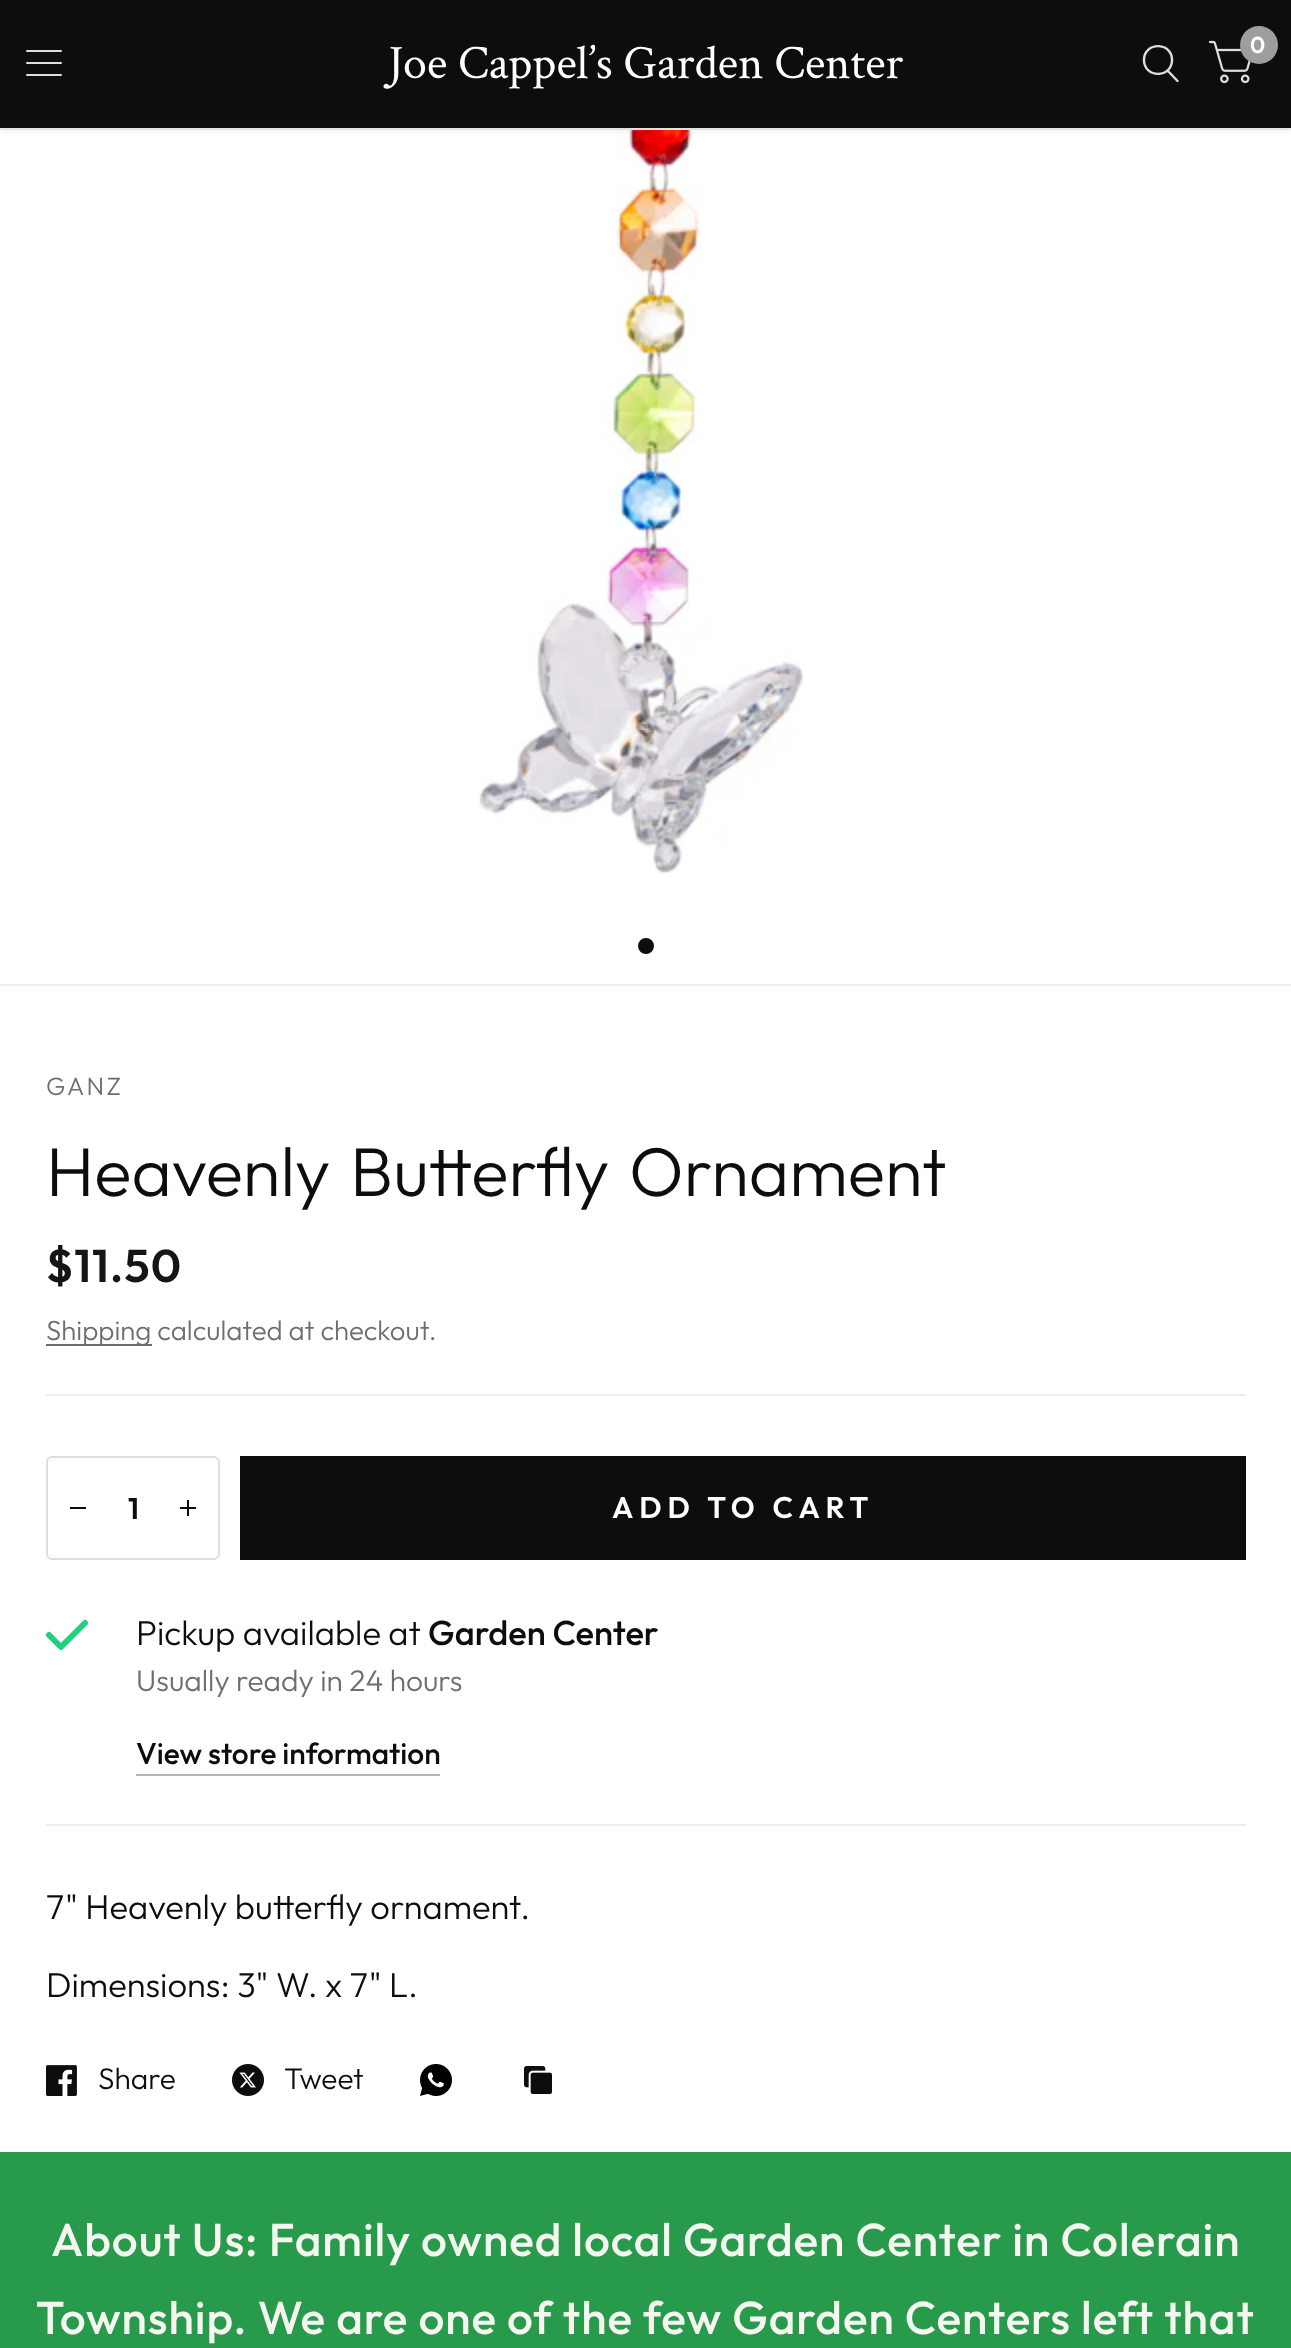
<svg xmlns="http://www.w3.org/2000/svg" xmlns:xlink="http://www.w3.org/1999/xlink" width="1291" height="2348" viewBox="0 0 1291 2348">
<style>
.cls-1{font:48px Crimson Text;fill:#ffffff}
.cls-2{font:600 23px Outfit;fill:#ffffff}
.cls-3{font:300 25px Outfit;letter-spacing:2.5px;fill:#6d6e6e}
.cls-4{font:300 69px Outfit;fill:#0c0d0d}
.cls-5{font:600 46px Outfit;letter-spacing:0.92px;fill:#151515}
.cls-6{font:300 27.6px Outfit;fill:#6d6e6e}
.cls-7{font:600 29.9px Outfit;fill:#0c0d0d}
.cls-8{font:600 29.9px Outfit;letter-spacing:6px;fill:#ffffff}
.cls-9{font:300 34.5px Outfit;fill:#0c0d0d}
.cls-10{font:500 34.5px Outfit;fill:#0c0d0d}
.cls-11{font:300 29.9px Outfit;fill:#6d6e6e}
.cls-12{font:500 29.9px Outfit;fill:#0c0d0d}
.cls-13{font:300 29.9px Outfit;fill:#0c0d0d}
.cls-14{font:500 46px Outfit;letter-spacing:0.92px;fill:#f6f6f0}
</style>
<defs>
<clipPath id="clip1"><rect x="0" y="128" width="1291" height="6"/></clipPath>
</defs>
<rect width="100%" height="100%" fill="#ffffff"/>
<rect fill="#0c0d0d" x="0" y="0" width="1291" height="128"/>
<rect fill="#eeeeee" x="0" y="128" width="1291" height="2"/>
<image xlink:href="image1.png" x="479" y="130" width="325" height="745"/>
<g clip-path="url(#clip1)">
<rect fill="#000000" fill-opacity="0.06" filter="blur(5px)" x="0" y="4" width="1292" height="128"/>
</g>
<rect fill="#dedede" x="26" y="50" width="36" height="2" rx="1"/>
<rect fill="#dedede" x="26" y="62" width="36" height="2" rx="1"/>
<rect fill="#dedede" x="26" y="74" width="36" height="2" rx="1"/>
<path fill="none" stroke="#dedede" stroke-width="2.4" stroke-linecap="round" stroke-linejoin="round" d="M1168 71L1177.5 81M1172 60C1172 78.5 1144 78.5 1144 60C1144 41.5 1172 41.5 1172 60Z"/>
<image xlink:href="image0.png" x="1208" y="40" width="43" height="44"/>
<circle fill="#9e9e9e" cx="1259" cy="45" r="19"/>
<rect fill="#eeeeee" x="0" y="984" width="1291" height="2"/>
<circle fill="#0c0d0d" stroke="#0c0d0d" stroke-width="4" cx="646" cy="946" r="6"/>
<rect fill="#eeeeee" x="46" y="1394" width="1200" height="2"/>
<rect fill="#6d6e6e" x="46" y="1344" width="106" height="2"/>
<rect fill="none" stroke="#dedede" stroke-width="2" x="47" y="1457" width="172" height="102" rx="5"/>
<rect fill="#0c0d0d" x="70" y="1507" width="16" height="2"/>
<rect fill="#0c0d0d" x="187" y="1500" width="2" height="16"/>
<rect fill="#0c0d0d" x="180" y="1507" width="16" height="2"/>
<rect fill="#0c0d0d" x="240" y="1456" width="1006" height="104"/>
<rect fill="#eeeeee" x="46" y="1824" width="1200" height="2"/>
<path fill="none" stroke="#21d17d" stroke-width="6" stroke-linecap="round" stroke-linejoin="round" d="M85 1623L61 1647L49 1635"/>
<rect fill="#b6b6b6" x="136" y="1774" width="304" height="2"/>
<image xlink:href="image2.png" x="46" y="2065" width="31" height="31"/>
<image xlink:href="image3.png" x="232" y="2064" width="32" height="32"/>
<image xlink:href="image4.png" x="420" y="2064" width="32" height="32"/>
<image xlink:href="image5.png" x="524" y="2066" width="28" height="28"/>
<rect fill="#279a4b" x="0" y="2152" width="1291" height="196"/>
<text class="cls-1" x="388" y="78">Joe Cappel’s Garden Center</text>
<text class="cls-2" x="1250" y="53">0</text>
<text class="cls-3" x="46" y="1095">GANZ</text>
<text class="cls-4" x="46" y="1196" word-spacing="5">Heavenly Butterfly Ornament</text>
<text class="cls-5" x="46" y="1282">$11.50</text>
<text class="cls-6" x="46" y="1340">Shipping calculated at checkout.</text>
<text class="cls-7" x="128" y="1519">1</text>
<text class="cls-8" x="612" y="1518">ADD TO CART</text>
<path fill="none" stroke="#0c0d0d" stroke-width="3.6" d="M744 1490C754 1490 762 1498 762 1508C762 1518 754 1526 744 1526C734 1526 726 1518 726 1508C726 1498 734 1490 744 1490"/>
<text class="cls-9" x="136" y="1645">Pickup available at</text>
<text class="cls-10" x="428" y="1645">Garden Center</text>
<text class="cls-11" x="136" y="1691">Usually ready in 24 hours</text>
<text class="cls-12" x="136" y="1764">View store information</text>
<text class="cls-9" x="46" y="1919">7" Heavenly butterfly ornament.</text>
<text class="cls-9" x="46" y="1997">Dimensions: 3" W. x 7" L.</text>
<text class="cls-13" x="98" y="2089">Share</text>
<text class="cls-13" x="284" y="2089">Tweet</text>
<text class="cls-14" x="51" y="2256">About Us: Family owned local Garden Center in Colerain</text>
<text class="cls-14" x="36" y="2334">Township. We are one of the few Garden Centers left that</text>
</svg>
